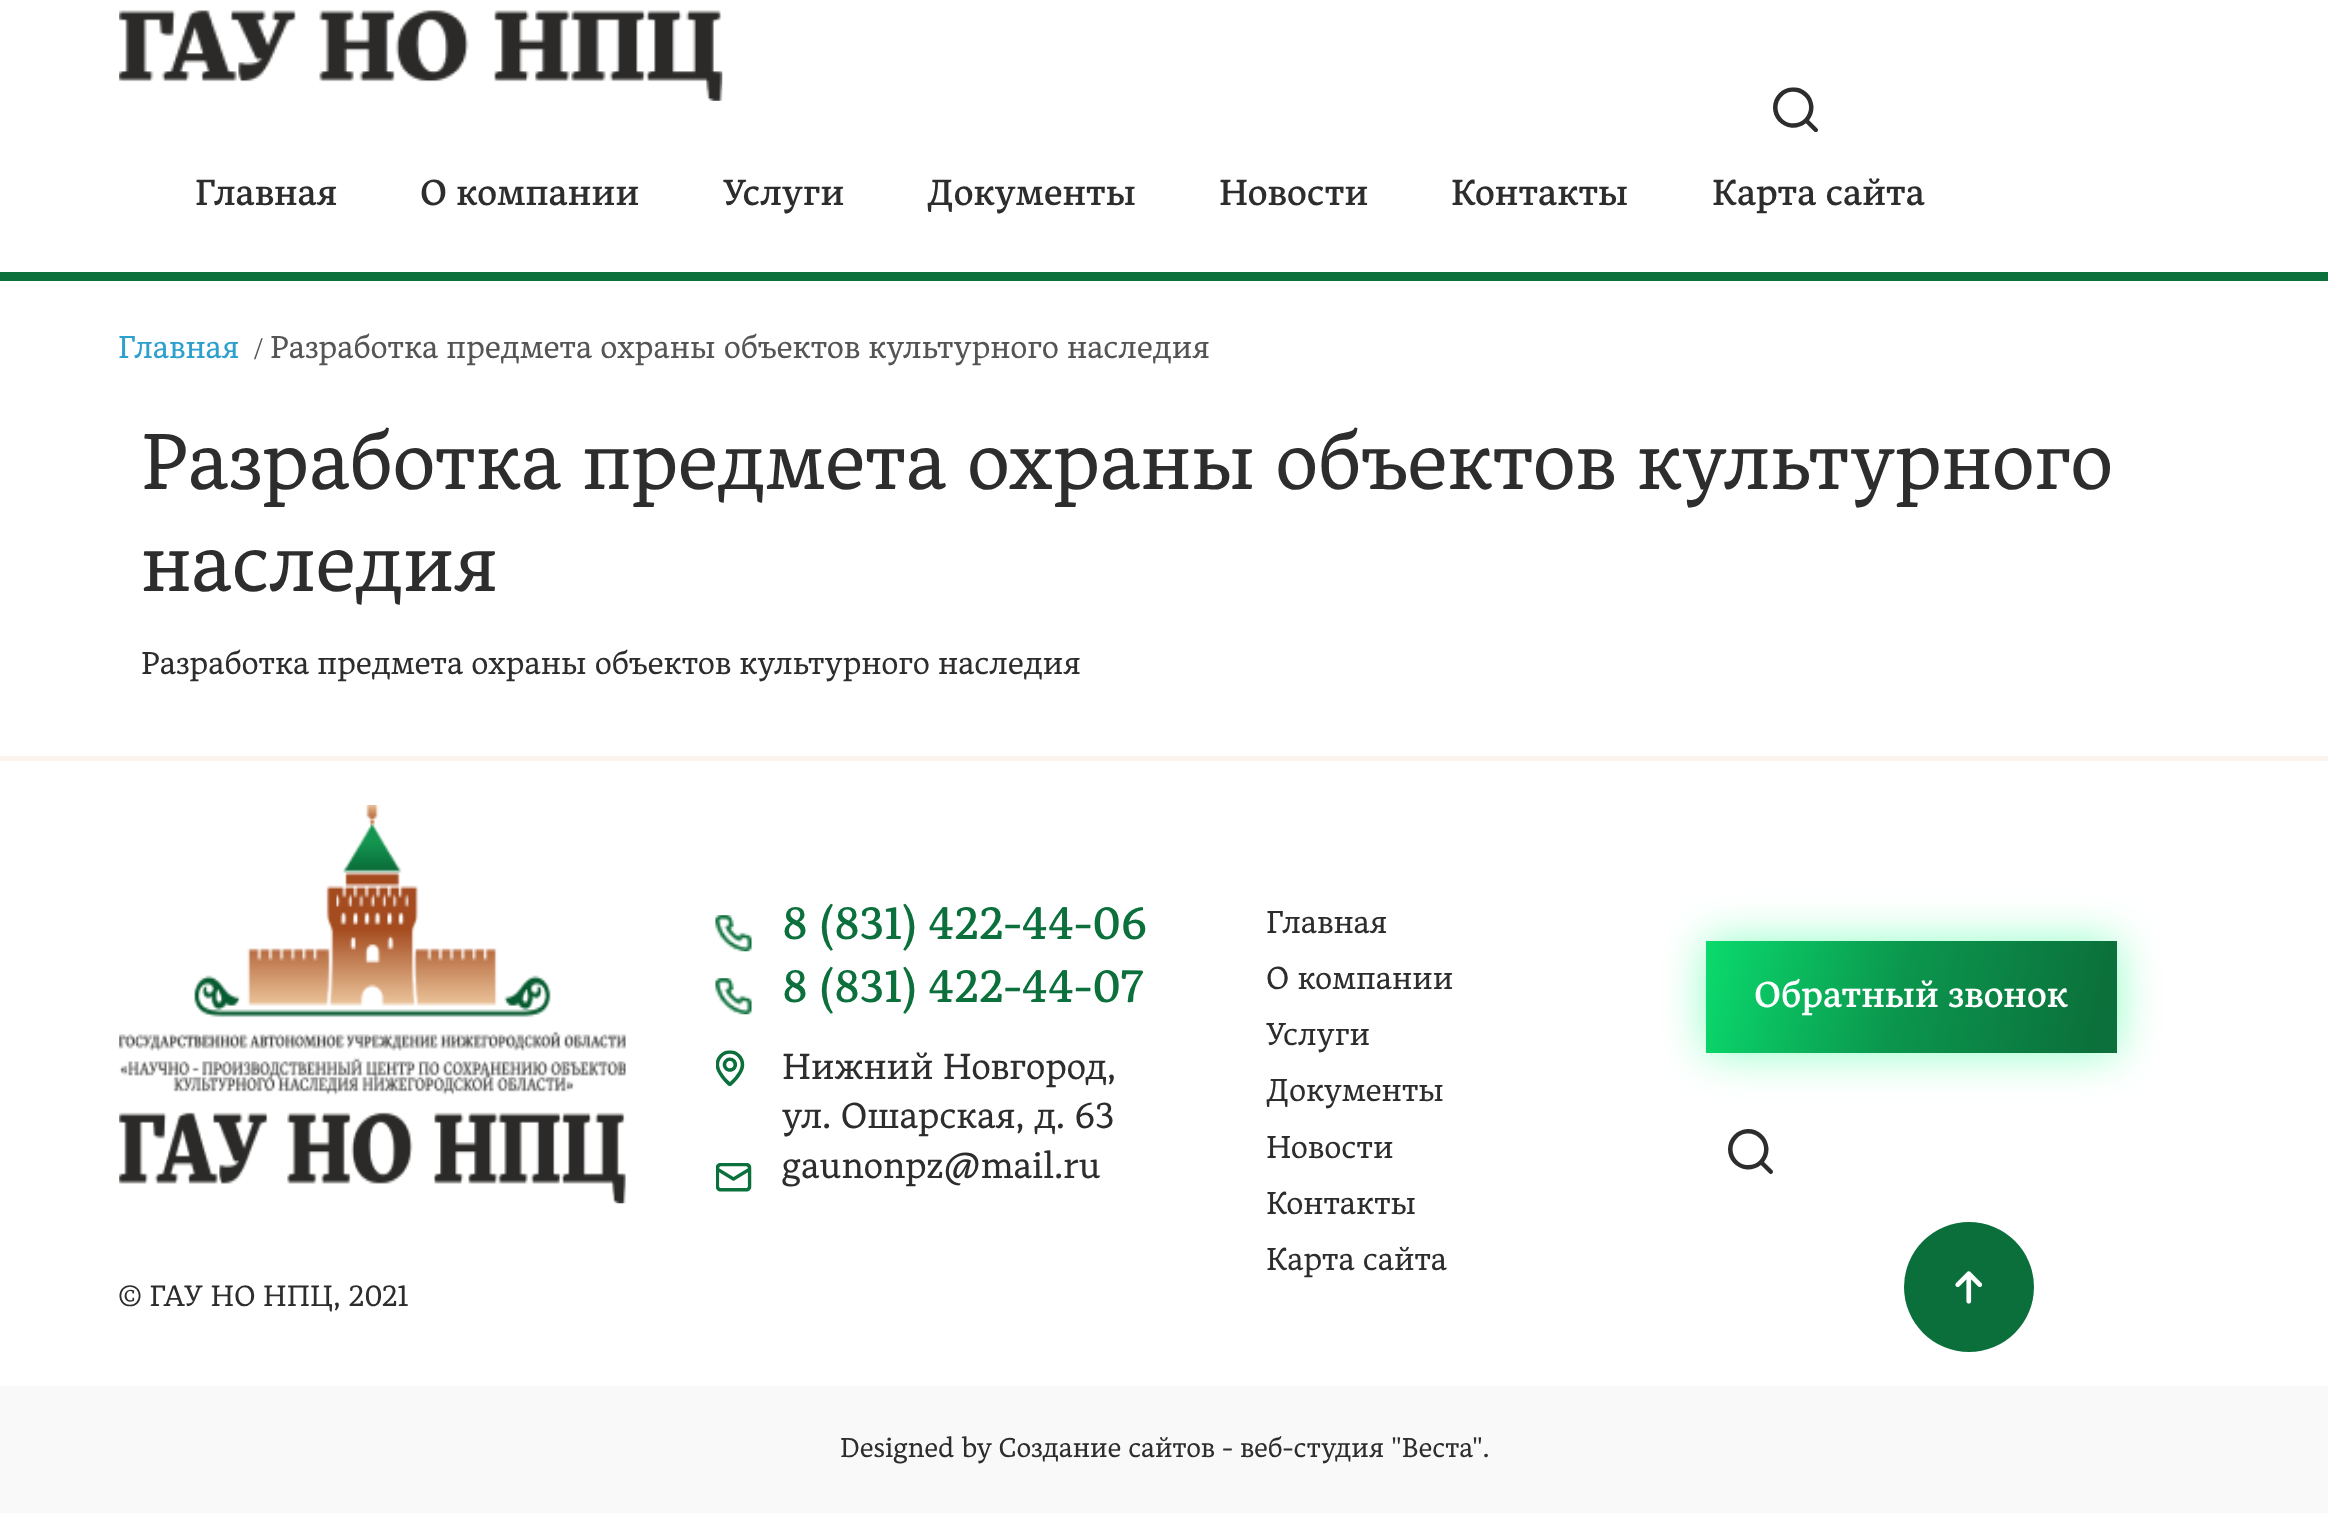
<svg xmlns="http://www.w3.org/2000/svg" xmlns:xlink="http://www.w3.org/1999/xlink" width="2328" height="1513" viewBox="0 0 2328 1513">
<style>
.cls-1{font:600 36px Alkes;fill:#2d2d2d}
.cls-2{font:31.5px Alkes;fill:#2da0ce}
.cls-3{font:31.5px Liberation Serif;fill:#555555}
.cls-4{font:31.5px Alkes;fill:#555555}
.cls-5{font:78.75px Alkes;fill:#2d2d2d}
.cls-6{font:31.5px Alkes;fill:#2d2d2d}
.cls-7{font:600 45px Alkes;fill:#0b703b}
.cls-8{font:36px Alkes;fill:#2d2d2d}
.cls-9{font:600 36px Alkes;fill:#ffffff}
.cls-10{font:29.25px Alkes;fill:#2d2d2d}
.cls-11{font:27px Alkes;fill:#2d2d2d}
</style>
<defs>
<linearGradient id="g1" gradientUnits="userSpaceOnUse" x1="1662" y1="940" x2="2119" y2="1044"><stop offset="0" stop-color="#0ae974"/><stop offset="0.52" stop-color="#0b964d"/><stop offset="0.95" stop-color="#0b703b"/></linearGradient>
</defs>
<rect width="100%" height="100%" fill="#ffffff"/>
<rect fill="#0b703b" x="0" y="272" width="2328" height="9"/>
<image xlink:href="image0.png" x="119" y="10" width="604" height="91"/>
<image xlink:href="image1.png" x="1773" y="87" width="45" height="45"/>
<rect fill="#fbf3ec" x="0" y="756" width="2328" height="5"/>
<image xlink:href="image2.png" x="715" y="915" width="37" height="37"/>
<image xlink:href="image2.png" x="715" y="978" width="37" height="37"/>
<image xlink:href="image3.png" x="716" y="1050" width="29" height="36"/>
<image xlink:href="image4.png" x="716" y="1163" width="36" height="29"/>
<rect fill="#5effaa" fill-opacity="0.71" filter="blur(22.5px)" x="1706" y="941" width="411" height="112"/>
<rect fill="url(#g1)" x="1706" y="941" width="411" height="112"/>
<image xlink:href="image5.png" x="1728" y="1129" width="45" height="45"/>
<image xlink:href="image6.png" x="119" y="805" width="507" height="399"/>
<rect fill="#f9f9f9" x="0" y="1386" width="2328" height="127"/>
<circle fill="#0b6f3c" cx="1969" cy="1287" r="65"/>
<image xlink:href="image7.png" x="1955" y="1271" width="28" height="33"/>
<text class="cls-1" x="195" y="205">Главная</text>
<text class="cls-1" x="420" y="205">О компании</text>
<text class="cls-1" x="723" y="205">Услуги</text>
<text class="cls-1" x="927" y="205">Документы</text>
<text class="cls-1" x="1219" y="205">Новости</text>
<text class="cls-1" x="1451" y="205">Контакты</text>
<text class="cls-1" x="1712" y="205">Карта сайта</text>
<text class="cls-2" x="118" y="358">Главная</text>
<text class="cls-3" x="254" y="359">/</text>
<text class="cls-4" x="270" y="358">Разработка предмета охраны объектов культурного наследия</text>
<text class="cls-5"><tspan x="141" y="489">Разработка предмета охраны объектов культурного</tspan><tspan x="141" y="591">наследия</tspan></text>
<text class="cls-6" x="141" y="674">Разработка предмета охраны объектов культурного наследия</text>
<text class="cls-7"><tspan x="782" y="939">8 (831) 422-44-06</tspan><tspan x="782" y="1002">8 (831) 422-44-07</tspan></text>
<text class="cls-8"><tspan x="782" y="1079">Нижний Новгород,</tspan><tspan x="782" y="1128">ул. Ошарская, д. 63</tspan><tspan x="782" y="1178">gaunonpz@mail.ru</tspan></text>
<text class="cls-6"><tspan x="1266" y="933">Главная</tspan><tspan x="1266" y="989">О компании</tspan><tspan x="1266" y="1045">Услуги</tspan><tspan x="1266" y="1101">Документы</tspan><tspan x="1266" y="1158">Новости</tspan><tspan x="1266" y="1214">Контакты</tspan><tspan x="1266" y="1270">Карта сайта</tspan></text>
<text class="cls-9" x="1754" y="1007">Обратный звонок</text>
<text class="cls-10" x="118" y="1306">© ГАУ НО НПЦ, 2021</text>
<text class="cls-11" x="840" y="1457">Designed by Создание сайтов - веб-студия "Веста".</text>
</svg>
